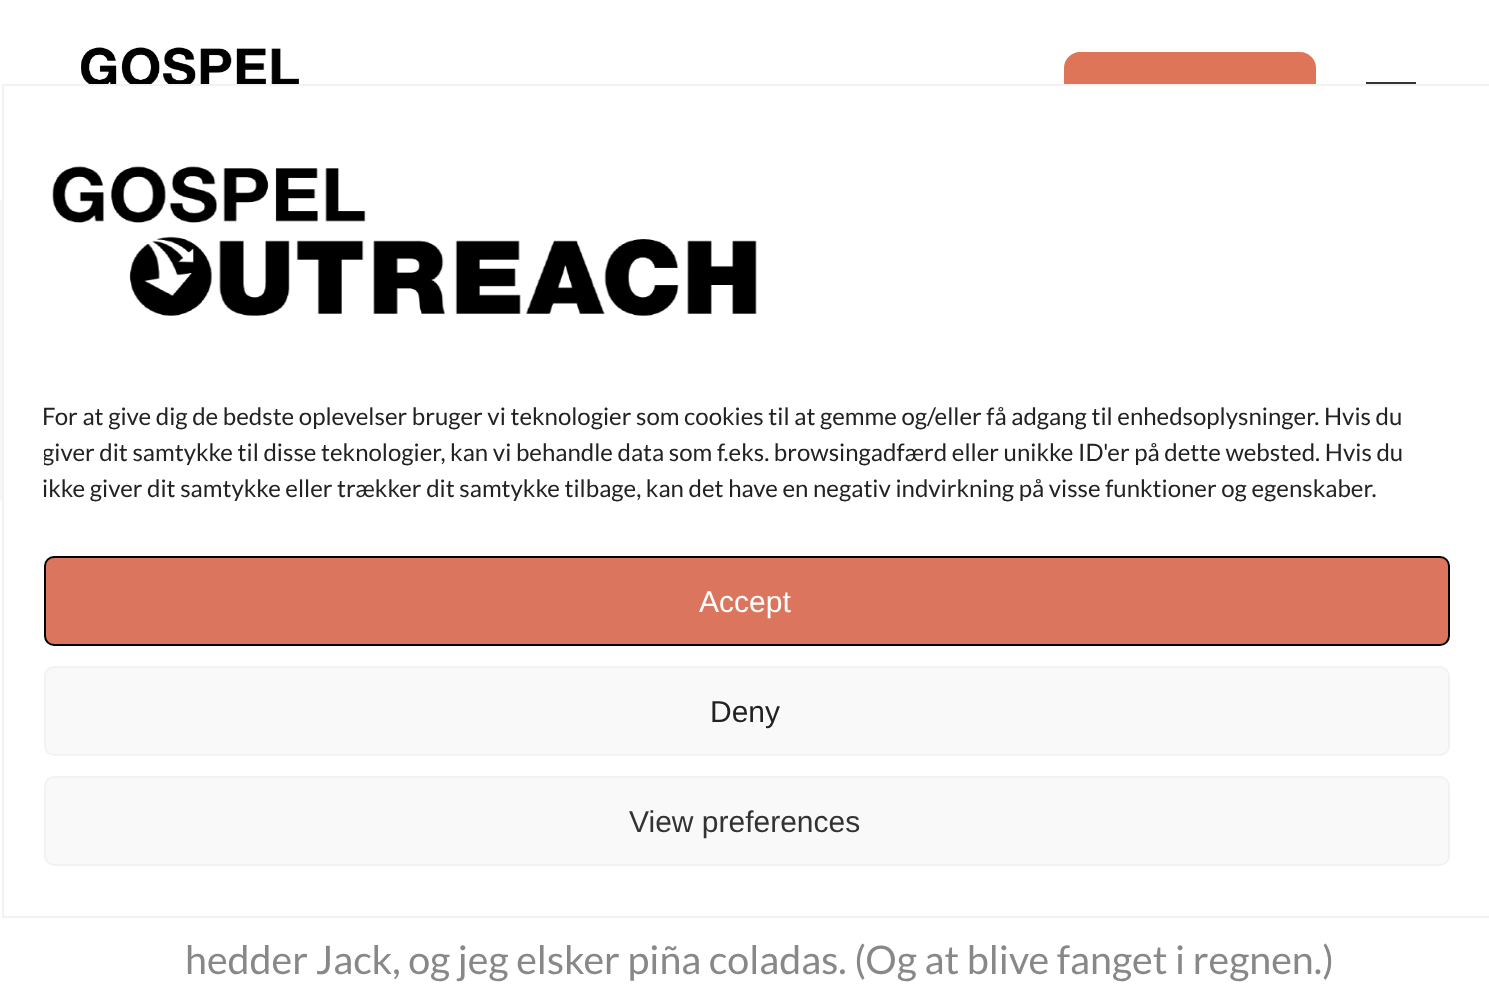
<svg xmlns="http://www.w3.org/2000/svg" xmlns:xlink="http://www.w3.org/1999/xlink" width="1489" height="1002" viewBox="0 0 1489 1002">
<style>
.cls-1{font:24px Lato;fill:#222222}
.cls-2{font:30px Liberation Sans;fill:#ffffff}
.cls-3{font:30px Liberation Sans;fill:#222222}
.cls-4{font:30px Liberation Sans;fill:#333333}
.cls-5{font:39.4px Lato;fill:#888888}
</style>
<defs>
<clipPath id="clip1"><rect x="44" y="156" width="1406" height="360"/></clipPath>
</defs>
<rect width="100%" height="100%" fill="#ffffff"/>
<rect fill="#de7559" x="1064" y="52" width="252" height="98" rx="16"/>
<rect fill="#ffffff" x="1064" y="86" width="252" height="64"/>
<rect fill="none" stroke="#f2f2f2" stroke-width="2" x="3" y="85" width="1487" height="832"/>
<image xlink:href="image0.png" x="52" y="166" width="705" height="150"/>
<rect fill="#dc755d" stroke="#000000" stroke-width="2" x="45" y="557" width="1404" height="88" rx="9"/>
<rect fill="#f9f9f9" stroke="#f2f2f2" stroke-width="2" x="45" y="667" width="1404" height="88" rx="9"/>
<rect fill="#f9f9f9" stroke="#f2f2f2" stroke-width="2" x="45" y="777" width="1404" height="88" rx="9"/>
<image xlink:href="image1.png" x="81" y="47" width="224" height="37"/>
<rect fill="#333333" x="1366" y="82" width="50" height="2"/>
<rect fill="#f7f7f7" x="0" y="200" width="2" height="300"/>
<text class="cls-1" x="42" y="425">For at give dig de bedste oplevelser bruger vi teknologier som cookies til at gemme og/eller få adgang til enhedsoplysninger. Hvis du</text>
<g clip-path="url(#clip1)">
<text class="cls-1" x="42" y="461">giver dit samtykke til disse teknologier, kan vi behandle data som f.eks. browsingadfærd eller unikke ID'er på dette websted. Hvis du</text>
</g>
<text class="cls-1" x="42" y="497">ikke giver dit samtykke eller trækker dit samtykke tilbage, kan det have en negativ indvirkning på visse funktioner og egenskaber.</text>
<text class="cls-2" x="699" y="612">Accept</text>
<text class="cls-3" x="710" y="722">Deny</text>
<text class="cls-4" x="629" y="832">View preferences</text>
<text class="cls-5" x="185" y="974">hedder Jack, og jeg elsker piña coladas. (Og at blive fanget i regnen.)</text>
</svg>
